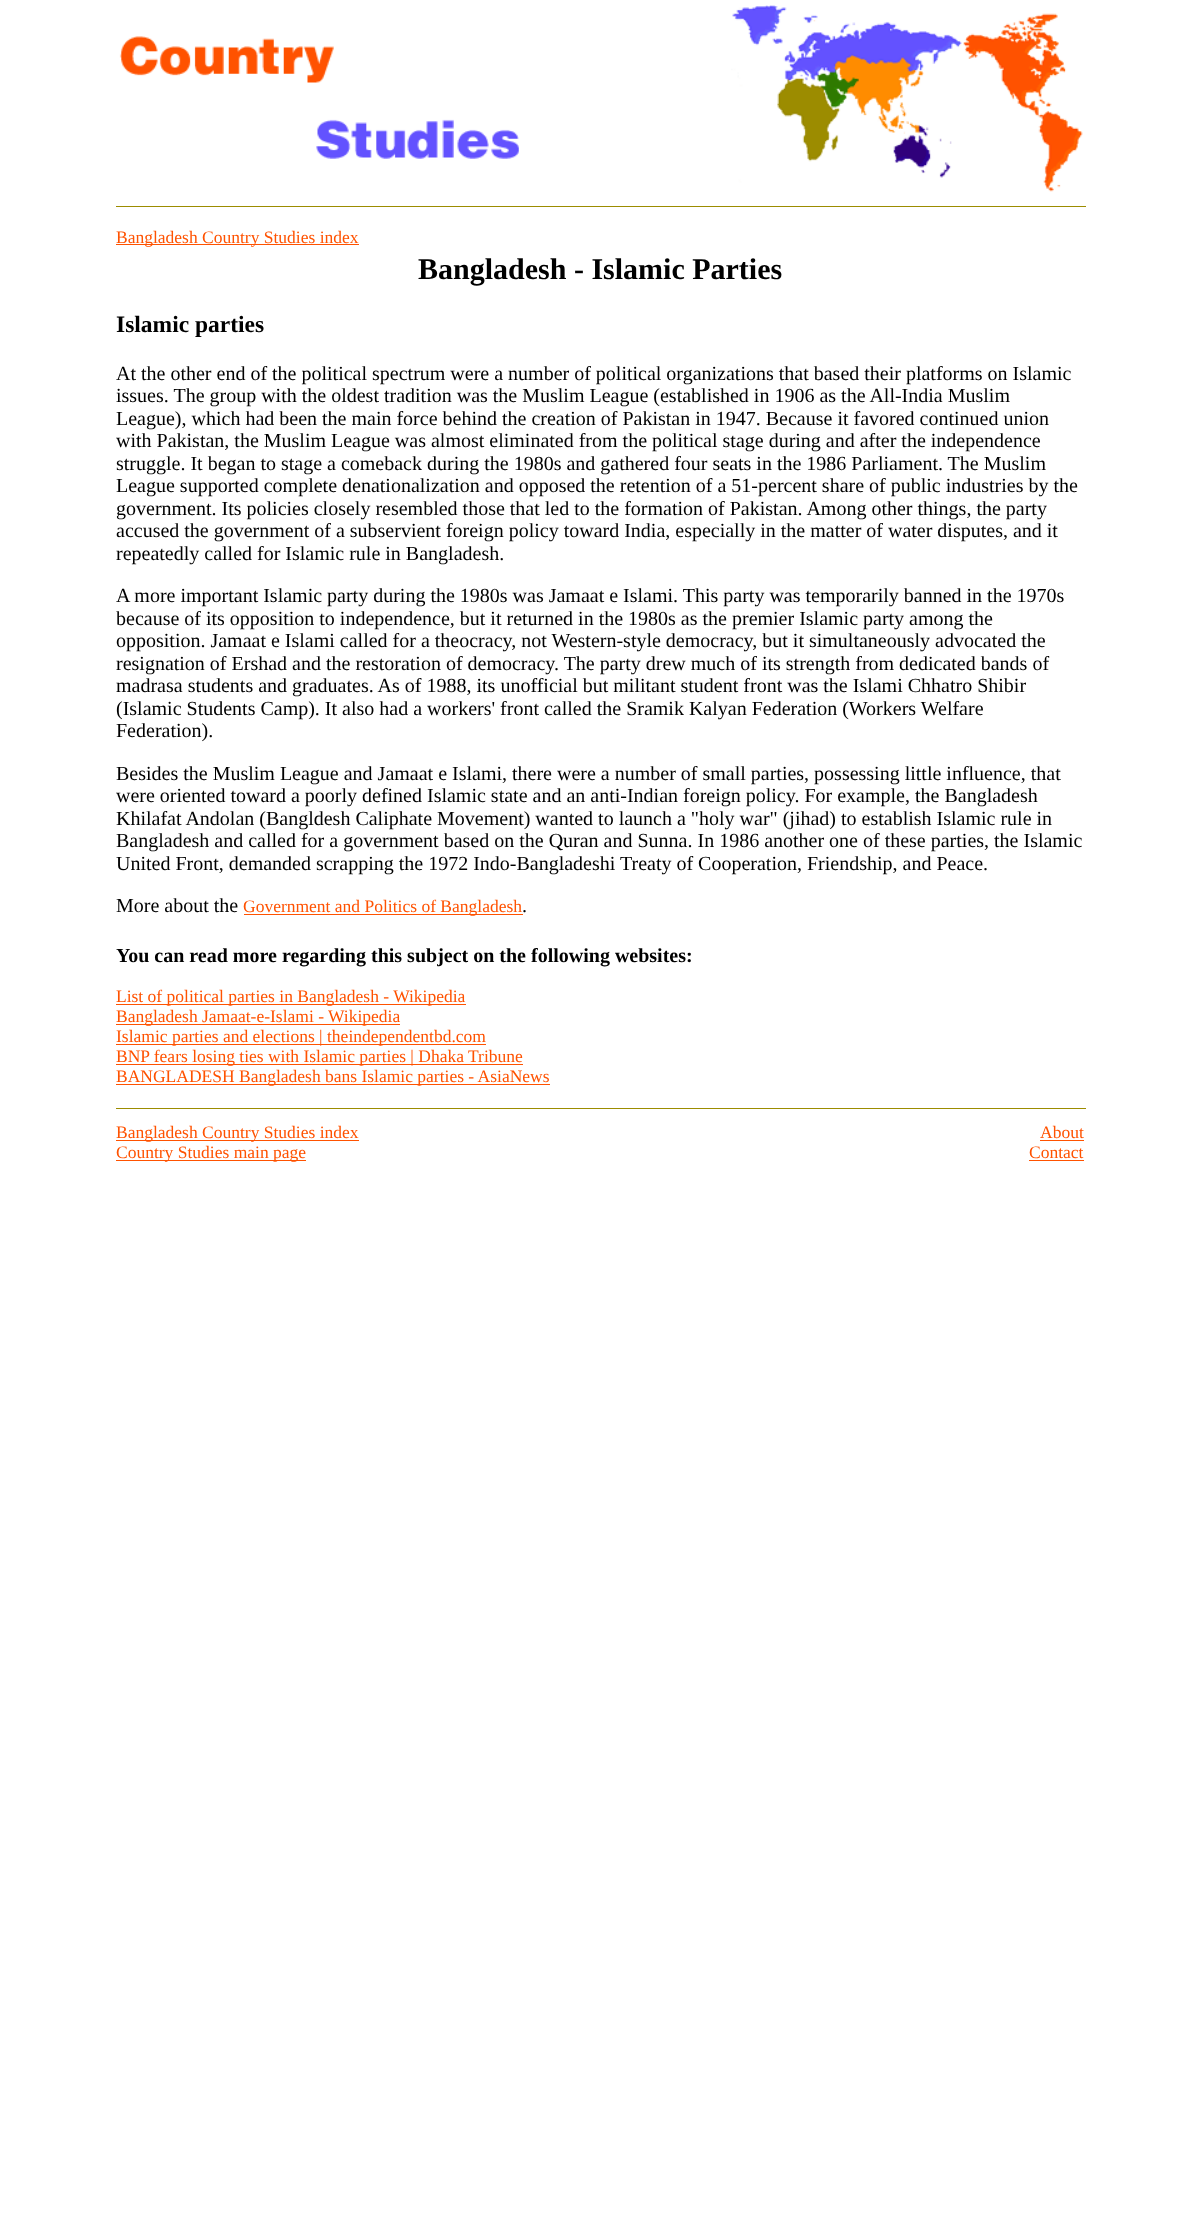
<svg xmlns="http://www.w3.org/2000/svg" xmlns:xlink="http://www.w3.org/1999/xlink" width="1200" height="2223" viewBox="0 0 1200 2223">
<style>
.cls-1{font:17.5px Liberation Serif;fill:#ff5200}
.cls-2{font:bold 30px Liberation Serif;fill:#000000}
.cls-3{font:bold 23.5px Liberation Serif;fill:#000000}
.cls-4{font:20px Liberation Serif;fill:#000000}
.cls-5{font:bold 20px Liberation Serif;fill:#000000}
</style>
<rect width="100%" height="100%" fill="#ffffff"/>
<image xlink:href="image0.png" x="119" y="36" width="400" height="123"/>
<image xlink:href="image1.png" x="731" y="5" width="352" height="187"/>
<rect fill="#9c8c00" x="116" y="206" width="970" height="1"/>
<rect fill="#ff5200" x="116" y="244" width="243" height="1"/>
<rect fill="#ff5200" x="244" y="914" width="279" height="1"/>
<rect fill="#ff5200" x="116" y="1004" width="350" height="1"/>
<rect fill="#ff5200" x="116" y="1024" width="284" height="1"/>
<rect fill="#ff5200" x="116" y="1044" width="370" height="1"/>
<rect fill="#ff5200" x="116" y="1064" width="407" height="1"/>
<rect fill="#ff5200" x="116" y="1084" width="434" height="1"/>
<rect fill="#9c8c00" x="116" y="1108" width="970" height="1"/>
<rect fill="#ff5200" x="116" y="1140" width="243" height="1"/>
<rect fill="#ff5200" x="116" y="1160" width="190" height="1"/>
<rect fill="#ff5200" x="1040" y="1140" width="44" height="1"/>
<rect fill="#ff5200" x="1029" y="1160" width="55" height="1"/>
<text class="cls-1" x="116" y="243">Bangladesh Country Studies index</text>
<text class="cls-2" x="418" y="279">Bangladesh - Islamic Parties</text>
<text class="cls-3" x="116" y="332">Islamic parties</text>
<text class="cls-4"><tspan x="116" y="380">At the other end of the political spectrum were a number of political organizations that based their platforms on Islamic</tspan><tspan x="116" y="402">issues. The group with the oldest tradition was the Muslim League (established in 1906 as the All-India Muslim</tspan><tspan x="116" y="425">League), which had been the main force behind the creation of Pakistan in 1947. Because it favored continued union</tspan><tspan x="116" y="447">with Pakistan, the Muslim League was almost eliminated from the political stage during and after the independence</tspan><tspan x="116" y="470">struggle. It began to stage a comeback during the 1980s and gathered four seats in the 1986 Parliament. The Muslim</tspan><tspan x="116" y="492">League supported complete denationalization and opposed the retention of a 51-percent share of public industries by the</tspan><tspan x="116" y="515">government. Its policies closely resembled those that led to the formation of Pakistan. Among other things, the party</tspan><tspan x="116" y="537">accused the government of a subservient foreign policy toward India, especially in the matter of water disputes, and it</tspan><tspan x="116" y="560">repeatedly called for Islamic rule in Bangladesh.</tspan></text>
<text class="cls-4"><tspan x="116" y="602">A more important Islamic party during the 1980s was Jamaat e Islami. This party was temporarily banned in the 1970s</tspan><tspan x="116" y="625">because of its opposition to independence, but it returned in the 1980s as the premier Islamic party among the</tspan><tspan x="116" y="647">opposition. Jamaat e Islami called for a theocracy, not Western-style democracy, but it simultaneously advocated the</tspan><tspan x="116" y="670">resignation of Ershad and the restoration of democracy. The party drew much of its strength from dedicated bands of</tspan><tspan x="116" y="692">madrasa students and graduates. As of 1988, its unofficial but militant student front was the Islami Chhatro Shibir</tspan><tspan x="116" y="715">(Islamic Students Camp). It also had a workers' front called the Sramik Kalyan Federation (Workers Welfare</tspan><tspan x="116" y="737">Federation).</tspan></text>
<text class="cls-4"><tspan x="116" y="780">Besides the Muslim League and Jamaat e Islami, there were a number of small parties, possessing little influence, that</tspan><tspan x="116" y="802">were oriented toward a poorly defined Islamic state and an anti-Indian foreign policy. For example, the Bangladesh</tspan><tspan x="116" y="825">Khilafat Andolan (Bangldesh Caliphate Movement) wanted to launch a "holy war" (jihad) to establish Islamic rule in</tspan><tspan x="116" y="847">Bangladesh and called for a government based on the Quran and Sunna. In 1986 another one of these parties, the Islamic</tspan><tspan x="116" y="870">United Front, demanded scrapping the 1972 Indo-Bangladeshi Treaty of Cooperation, Friendship, and Peace.</tspan></text>
<text class="cls-4" x="116" y="912">More about the</text>
<text class="cls-1" x="243" y="912">Government and Politics of Bangladesh</text>
<text class="cls-4" x="522" y="912">.</text>
<text class="cls-5" x="116" y="962">You can read more regarding this subject on the following websites:</text>
<text class="cls-1"><tspan x="116" y="1002">List of political parties in Bangladesh - Wikipedia</tspan><tspan x="116" y="1022">Bangladesh Jamaat-e-Islami - Wikipedia</tspan><tspan x="116" y="1042">Islamic parties and elections | theindependentbd.com</tspan><tspan x="116" y="1062">BNP fears losing ties with Islamic parties | Dhaka Tribune</tspan><tspan x="116" y="1082">BANGLADESH Bangladesh bans Islamic parties - AsiaNews</tspan></text>
<text class="cls-1"><tspan x="116" y="1138">Bangladesh Country Studies index</tspan><tspan x="116" y="1158">Country Studies main page</tspan></text>
<text class="cls-1" x="1040" y="1138">About</text>
<text class="cls-1" x="1029" y="1158">Contact</text>
</svg>
